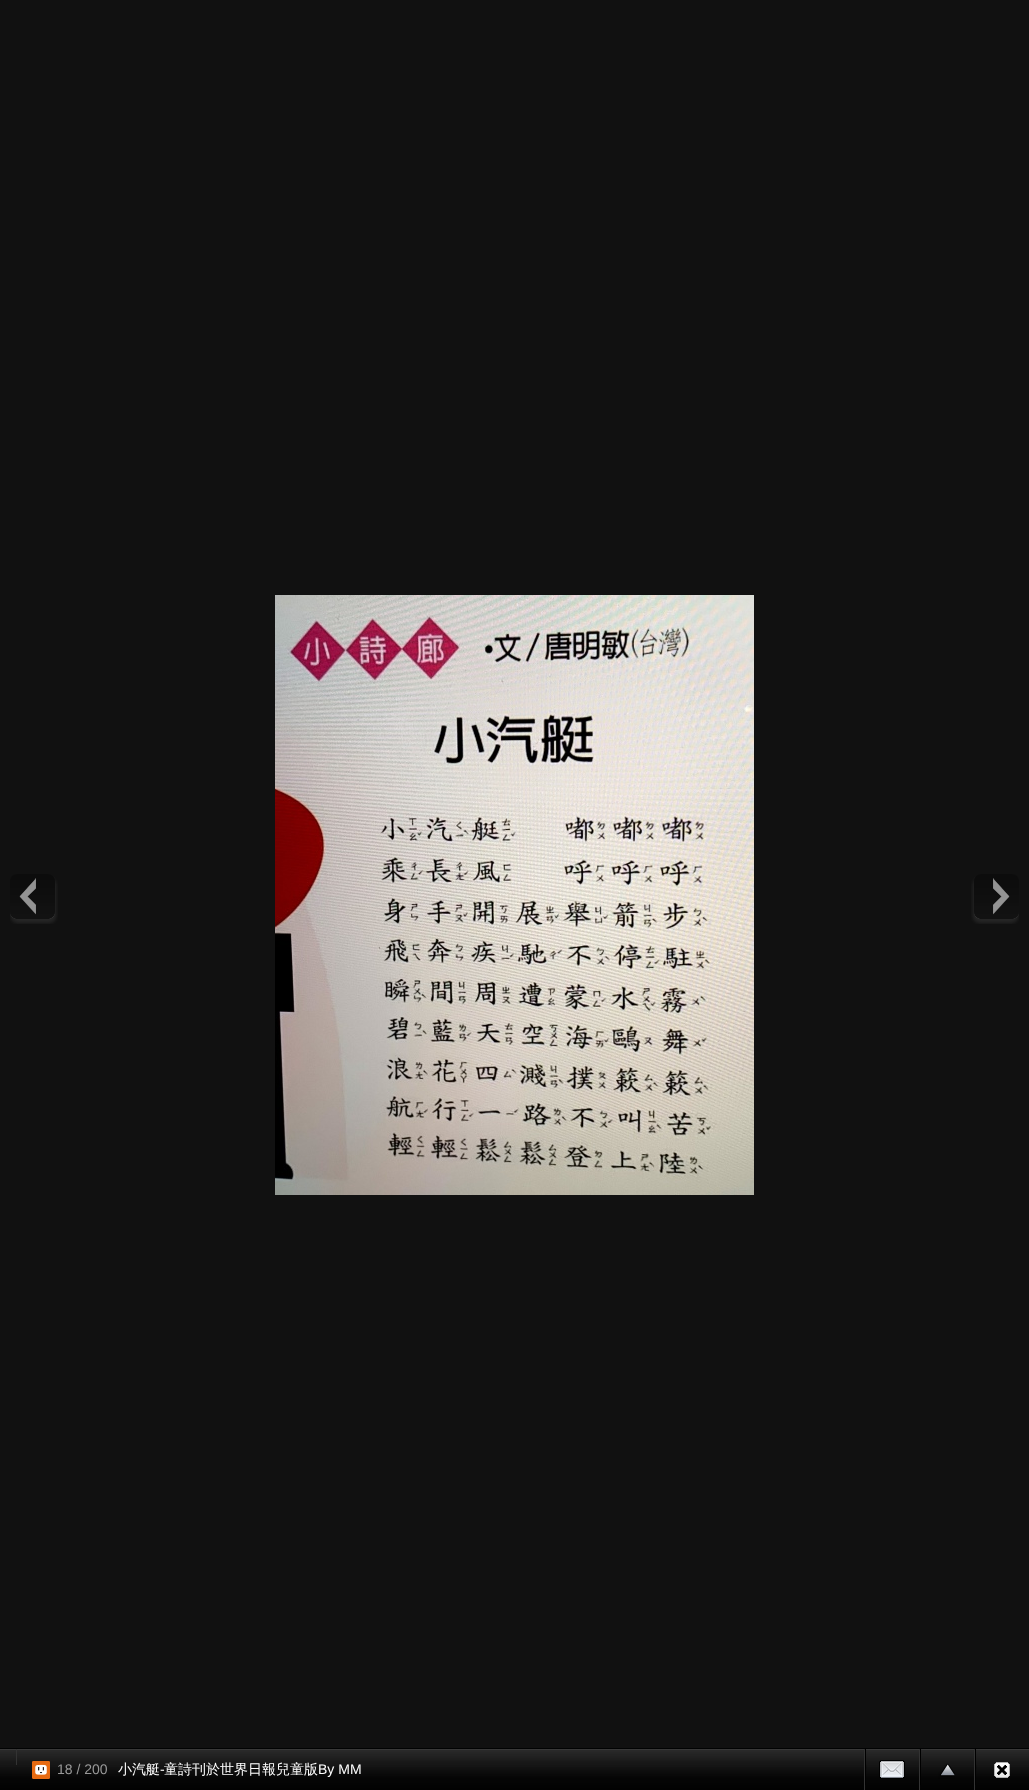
<svg xmlns="http://www.w3.org/2000/svg" xmlns:xlink="http://www.w3.org/1999/xlink" width="1029" height="1790" viewBox="0 0 1029 1790">
<style>
.cls-1{font:14px Liberation Sans;fill:#999999}
.cls-2{font:500 14px WenQuanYi Zen Hei;fill:#ffffff}
.cls-3{font:14px Liberation Sans;fill:#ffffff}
</style>
<rect width="100%" height="100%" fill="#111111"/>
<image xlink:href="image0.png" x="10" y="874" width="48" height="50"/>
<image xlink:href="image1.png" x="275" y="595" width="479" height="600"/>
<image xlink:href="image2.png" x="971" y="874" width="48" height="50"/>
<image xlink:href="image3.png" x="0" y="1748" width="1029" height="42"/>
<rect fill="#333333" x="16" y="1749" width="1" height="16"/>
<image xlink:href="image4.png" x="32" y="1761" width="18" height="18"/>
<rect fill="#333333" x="864" y="1749" width="1" height="41"/>
<image xlink:href="image5.png" x="865" y="1749" width="40" height="36"/>
<rect fill="#333333" x="919" y="1749" width="1" height="41"/>
<image xlink:href="image6.png" x="920" y="1749" width="35" height="36"/>
<rect fill="#333333" x="974" y="1749" width="1" height="41"/>
<image xlink:href="image7.png" x="975" y="1749" width="35" height="36"/>
<text class="cls-1" x="57" y="1774">18 / 200</text>
<text class="cls-2" x="118" y="1774">小汽艇</text>
<text class="cls-3" x="160" y="1774">-</text>
<text class="cls-2" x="164" y="1774">童詩刊於世界日報兒童版</text>
<text class="cls-3" x="318" y="1774">By MM</text>
</svg>
